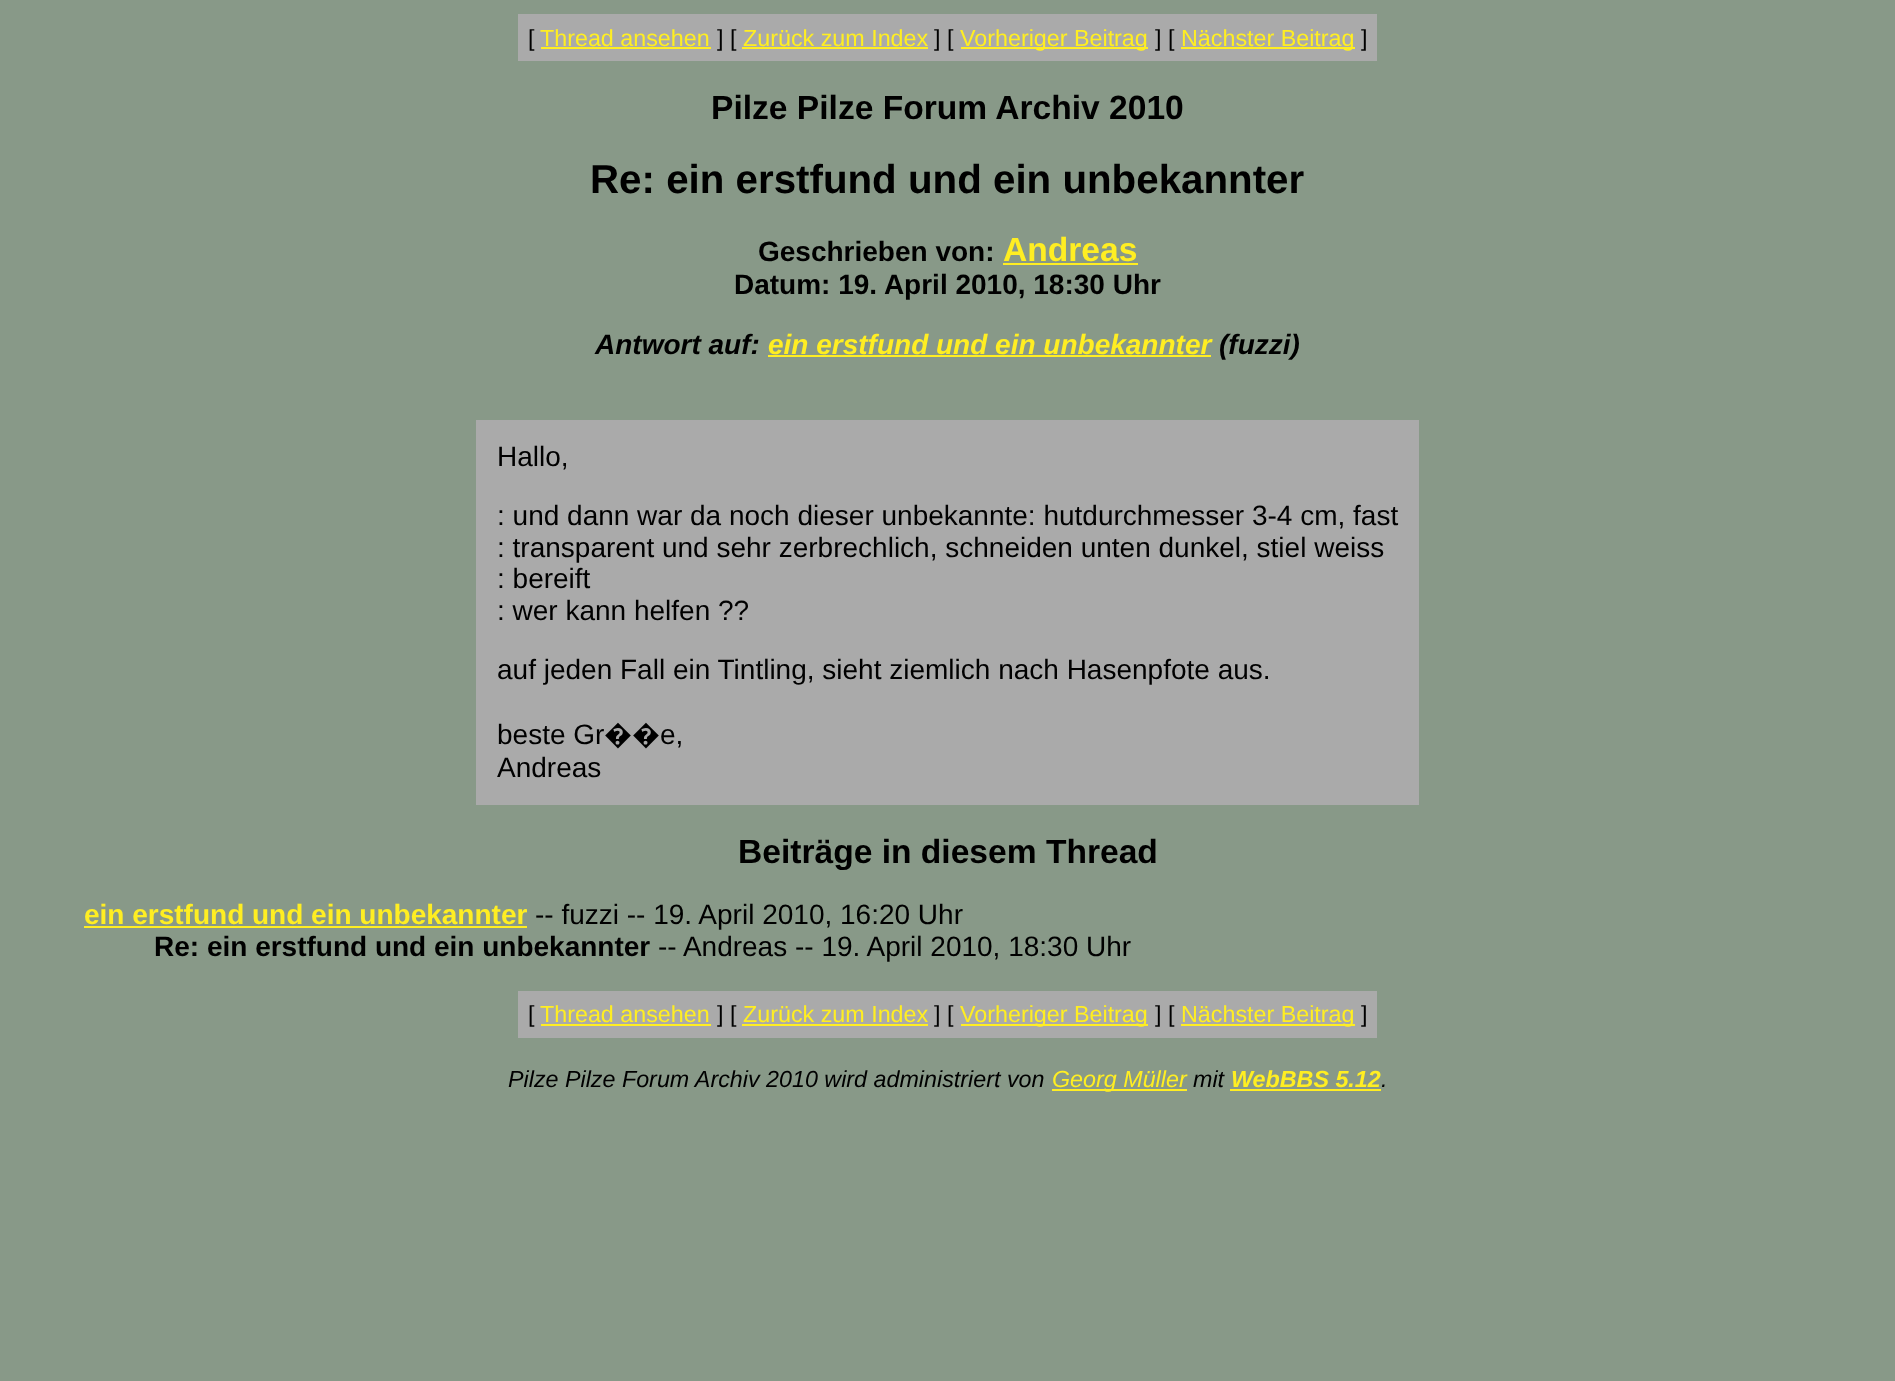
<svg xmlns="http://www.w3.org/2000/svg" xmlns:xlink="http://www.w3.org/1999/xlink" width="1895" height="1381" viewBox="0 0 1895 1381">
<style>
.cls-1{font:23.3px Liberation Sans;fill:#000000}
.cls-2{font:23.3px Liberation Sans;fill:#ffee22}
.cls-3{font:bold 33.6px Liberation Sans;fill:#000000}
.cls-4{font:bold 40.3px Liberation Sans;fill:#000000}
.cls-5{font:bold 28px Liberation Sans;fill:#000000}
.cls-6{font:bold 33.6px Liberation Sans;fill:#ffee22}
.cls-7{font:italic bold 28px Liberation Sans;fill:#000000}
.cls-8{font:italic bold 28px Liberation Sans;fill:#ffee22}
.cls-9{font:28px Liberation Sans;fill:#000000}
.cls-10{font:28px Noto Sans;fill:#000000}
.cls-11{font:bold 28px Liberation Sans;fill:#ffee22}
.cls-12{font:italic 23.3px Liberation Sans;fill:#000000}
.cls-13{font:italic 23.3px Liberation Sans;fill:#ffee22}
.cls-14{font:italic bold 23.3px Liberation Sans;fill:#ffee22}
</style>
<rect width="100%" height="100%" fill="#889988"/>
<rect fill="#aaaaaa" x="518" y="14" width="859" height="47"/>
<rect fill="#ffee22" x="541" y="47" width="170" height="2"/>
<rect fill="#ffee22" x="742" y="47" width="186" height="2"/>
<rect fill="#ffee22" x="961" y="47" width="187" height="2"/>
<rect fill="#ffee22" x="1181" y="47" width="174" height="2"/>
<rect fill="#ffee22" x="1003" y="263" width="135" height="2"/>
<rect fill="#ffee22" x="768" y="355" width="443" height="2"/>
<rect fill="#aaaaaa" x="476" y="420" width="943" height="385"/>
<rect fill="#ffee22" x="84" y="926" width="443" height="2"/>
<rect fill="#aaaaaa" x="518" y="991" width="859" height="47"/>
<rect fill="#ffee22" x="541" y="1024" width="170" height="2"/>
<rect fill="#ffee22" x="742" y="1024" width="186" height="2"/>
<rect fill="#ffee22" x="961" y="1024" width="187" height="2"/>
<rect fill="#ffee22" x="1181" y="1024" width="174" height="2"/>
<rect fill="#ffee22" x="1052" y="1089" width="135" height="2"/>
<rect fill="#ffee22" x="1230" y="1089" width="151" height="2"/>
<text class="cls-1" x="528" y="46">[</text>
<text class="cls-2" x="540" y="46">Thread ansehen</text>
<text class="cls-1" x="717" y="46">] [</text>
<text class="cls-2" x="743" y="46">Zurück zum Index</text>
<text class="cls-1" x="934" y="46">] [</text>
<text class="cls-2" x="960" y="46">Vorheriger Beitrag</text>
<text class="cls-1" x="1155" y="46">] [</text>
<text class="cls-2" x="1181" y="46">Nächster Beitrag</text>
<text class="cls-1" x="1361" y="46">]</text>
<text class="cls-3" x="711" y="119">Pilze Pilze Forum Archiv 2010</text>
<text class="cls-4" x="590" y="193">Re: ein erstfund und ein unbekannter</text>
<text class="cls-5" x="758" y="261">Geschrieben von:</text>
<text class="cls-6" x="1003" y="261">Andreas</text>
<text class="cls-5" x="734" y="294">Datum: 19. April 2010, 18:30 Uhr</text>
<text class="cls-7" x="595" y="354">Antwort auf:</text>
<text class="cls-8" x="768" y="354">ein erstfund und ein unbekannter</text>
<text class="cls-7" x="1219" y="354">(fuzzi)</text>
<text class="cls-9" x="497" y="466">Hallo,</text>
<text class="cls-9"><tspan x="497" y="525">: und dann war da noch dieser unbekannte: hutdurchmesser 3-4 cm, fast</tspan><tspan x="497" y="557">: transparent und sehr zerbrechlich, schneiden unten dunkel, stiel weiss</tspan><tspan x="497" y="588">: bereift</tspan><tspan x="497" y="620">: wer kann helfen ??</tspan></text>
<text class="cls-9" x="497" y="679">auf jeden Fall ein Tintling, sieht ziemlich nach Hasenpfote aus.</text>
<text class="cls-9" x="497" y="744">beste Gr</text>
<text class="cls-10" x="604" y="744">��</text>
<text class="cls-9" x="660" y="744">e,</text>
<text class="cls-9" x="497" y="777">Andreas</text>
<text class="cls-3" x="738" y="863">Beiträge in diesem Thread</text>
<text class="cls-11" x="84" y="924">ein erstfund und ein unbekannter</text>
<text class="cls-9" x="535" y="924">-- fuzzi -- 19. April 2010, 16:20 Uhr</text>
<text class="cls-5" x="154" y="956">Re: ein erstfund und ein unbekannter</text>
<text class="cls-9" x="658" y="956">-- Andreas -- 19. April 2010, 18:30 Uhr</text>
<text class="cls-1" x="528" y="1022">[</text>
<text class="cls-2" x="540" y="1022">Thread ansehen</text>
<text class="cls-1" x="717" y="1022">] [</text>
<text class="cls-2" x="743" y="1022">Zurück zum Index</text>
<text class="cls-1" x="934" y="1022">] [</text>
<text class="cls-2" x="960" y="1022">Vorheriger Beitrag</text>
<text class="cls-1" x="1155" y="1022">] [</text>
<text class="cls-2" x="1181" y="1022">Nächster Beitrag</text>
<text class="cls-1" x="1361" y="1022">]</text>
<text class="cls-12" x="508" y="1087">Pilze Pilze Forum Archiv 2010 wird administriert von</text>
<text class="cls-13" x="1052" y="1087">Georg Müller</text>
<text class="cls-12" x="1193" y="1087">mit</text>
<text class="cls-14" x="1231" y="1087">WebBBS 5.12</text>
<text class="cls-12" x="1381" y="1087">.</text>
</svg>
